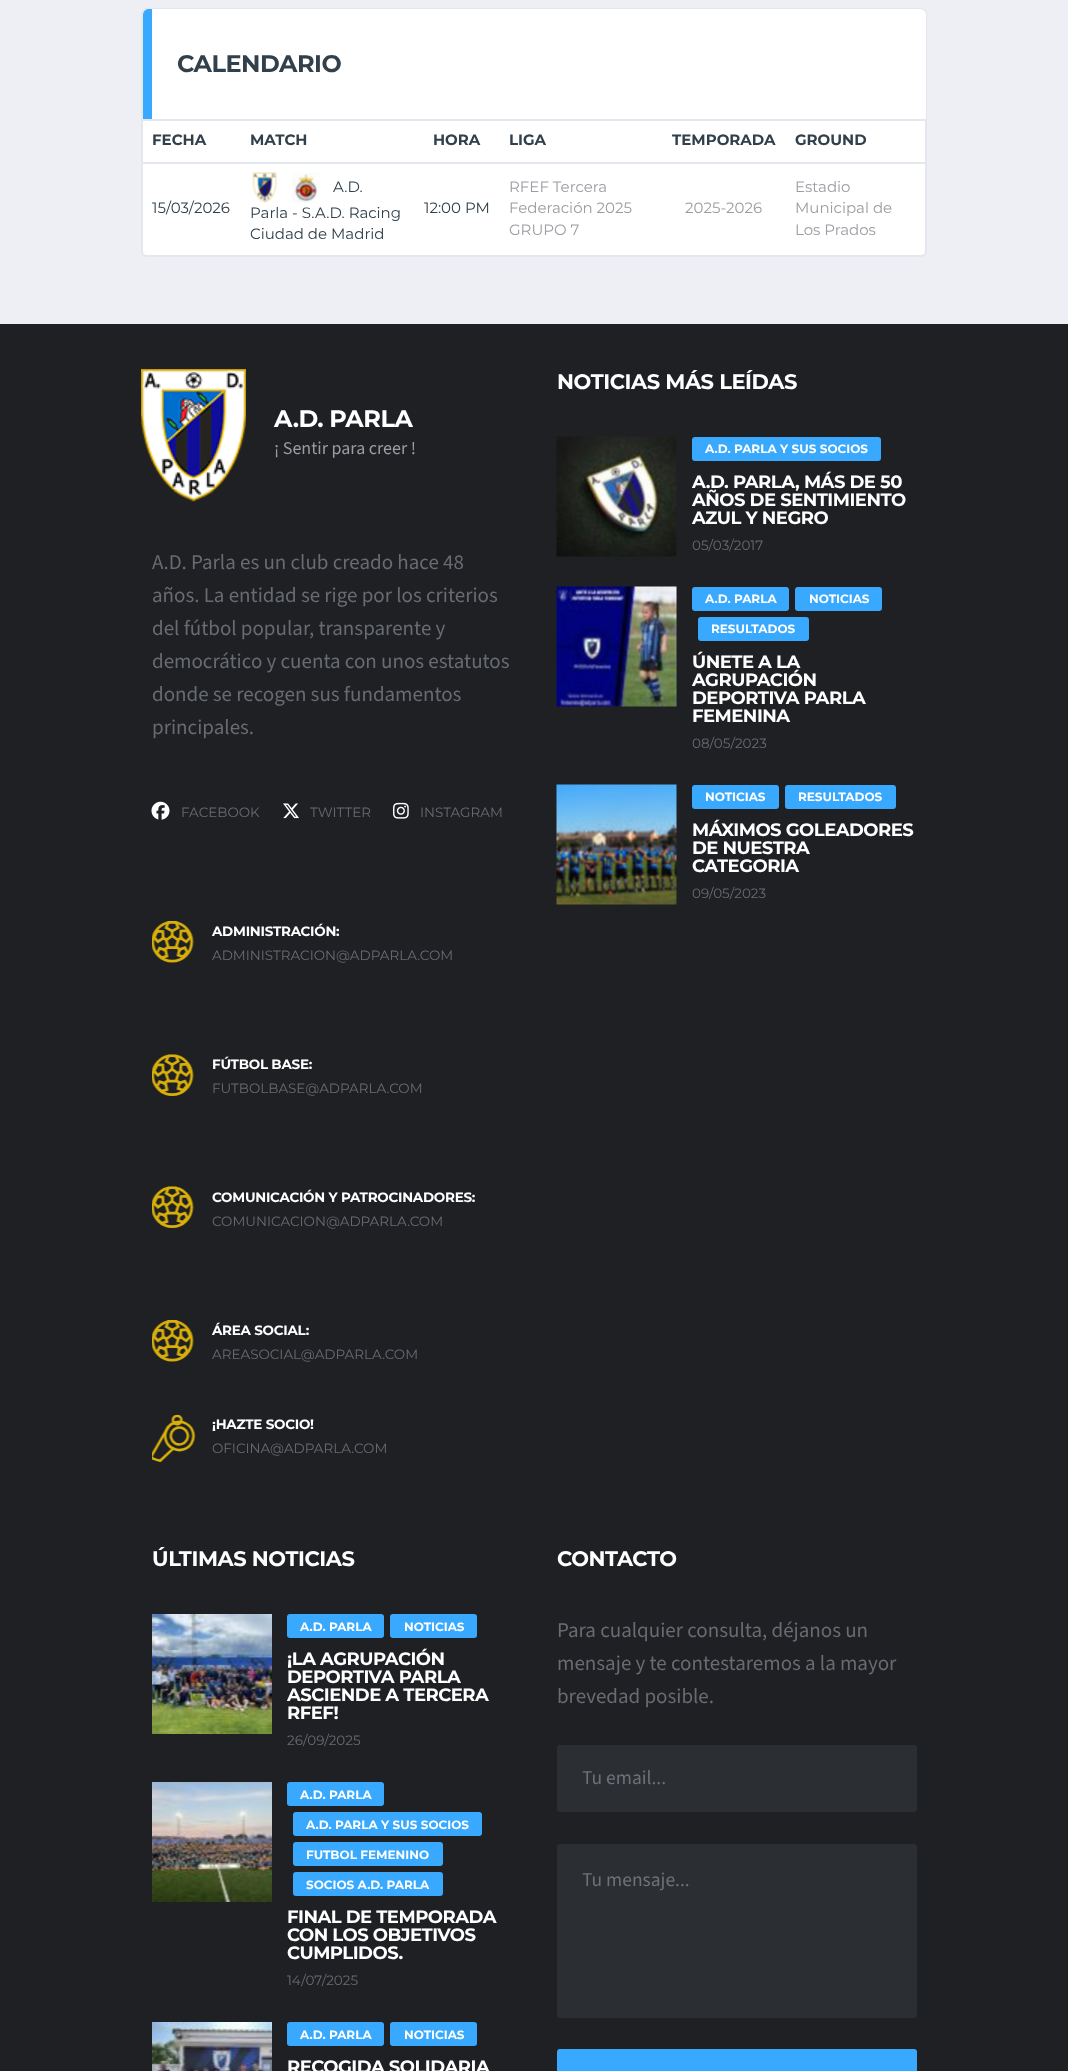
<svg xmlns="http://www.w3.org/2000/svg" xmlns:xlink="http://www.w3.org/1999/xlink" width="1068" height="2071" viewBox="0 0 1068 2071">
<style>
.cls-1{font:bold 24px Montserrat;letter-spacing:-0.5px;fill:#31404b}
.cls-2{font:bold 15px Montserrat;fill:#31404b}
.cls-3{font:15px Montserrat;fill:#31404b}
.cls-4{font:15px Montserrat;fill:#9a9da2}
.cls-5{font:bold 24px Montserrat;letter-spacing:-0.5px;fill:#ffffff}
.cls-6{font:18px 'Source Sans 3';fill:#9a9da2}
.cls-7{font:21px 'Source Sans 3';fill:#686b70}
.cls-8{font:13.5px Montserrat;fill:#686b70}
.cls-9{font:bold 13.5px Montserrat;letter-spacing:-0.25px;fill:#ffffff}
.cls-10{font:bold 21px Montserrat;letter-spacing:-0.4px;fill:#ffffff}
.cls-11{font:bold 12px Montserrat;fill:#ffffff}
.cls-12{font:bold 18px Montserrat;letter-spacing:-0.5px;fill:#ffffff}
.cls-13{font:19.5px 'Source Sans 3';fill:#6e7176}
</style>
<defs>
<clipPath id="clip1"><rect x="143" y="9" width="783" height="246" rx="5"/></clipPath>
</defs>
<rect width="100%" height="100%" fill="#edeff4"/>
<rect fill="#ffffff" stroke="#e4e7ed" stroke-width="2" x="142" y="9" width="784" height="247" rx="5"/>
<g clip-path="url(#clip1)">
<path fill="#ffffff" d="M149 9H920C923.5 9 926 11.5 926 15V120H143V15C143 11.5 145.5 9 149 9Z"/>
</g>
<rect fill="#e4e7ed" x="143" y="119" width="783" height="2"/>
<path fill="#38a9ff" d="M149 9H152V119H143V15C143 11.5 145.5 9 149 9Z"/>
<image xlink:href="image0.png" x="252" y="172" width="25" height="31"/>
<image xlink:href="image1.png" x="292" y="172" width="28" height="31"/>
<rect fill="#e4e7ed" x="143" y="162" width="783" height="2"/>
<rect fill="#1e2024" x="0" y="324" width="1068" height="1747"/>
<image xlink:href="image2.png" x="141" y="369" width="105" height="133"/>
<image xlink:href="image3.png" x="151" y="801" width="19" height="19"/>
<image xlink:href="image4.png" x="283" y="803" width="16" height="16"/>
<image xlink:href="image5.png" x="393" y="802" width="16" height="17"/>
<image xlink:href="image6.png" x="152" y="921" width="42" height="42"/>
<image xlink:href="image7.png" x="152" y="1054" width="42" height="42"/>
<image xlink:href="image7.png" x="152" y="1186" width="42" height="42"/>
<image xlink:href="image6.png" x="152" y="1320" width="42" height="42"/>
<image xlink:href="image8.png" x="152" y="1414" width="44" height="48"/>
<image xlink:href="image9.png" x="556" y="436" width="121" height="121"/>
<rect fill="#38a9ff" x="692" y="437" width="189" height="24" rx="3"/>
<image xlink:href="image10.png" x="556" y="586" width="121" height="121"/>
<rect fill="#38a9ff" x="692" y="587" width="97" height="24" rx="3"/>
<rect fill="#38a9ff" x="795" y="587" width="87" height="24" rx="3"/>
<rect fill="#38a9ff" x="698" y="617" width="111" height="24" rx="3"/>
<image xlink:href="image11.png" x="556" y="784" width="121" height="121"/>
<rect fill="#38a9ff" x="692" y="785" width="87" height="24" rx="3"/>
<rect fill="#38a9ff" x="785" y="785" width="111" height="24" rx="3"/>
<image xlink:href="image12.png" x="152" y="1614" width="120" height="120"/>
<rect fill="#38a9ff" x="287" y="1614" width="97" height="24" rx="3"/>
<rect fill="#38a9ff" x="390" y="1614" width="87" height="24" rx="3"/>
<image xlink:href="image13.png" x="152" y="1782" width="120" height="120"/>
<rect fill="#38a9ff" x="287" y="1782" width="97" height="24" rx="3"/>
<rect fill="#38a9ff" x="293" y="1812" width="189" height="24" rx="3"/>
<rect fill="#38a9ff" x="293" y="1842" width="150" height="24" rx="3"/>
<rect fill="#38a9ff" x="293" y="1872" width="150" height="24" rx="3"/>
<image xlink:href="image14.png" x="152" y="2022" width="120" height="49"/>
<rect fill="#38a9ff" x="287" y="2022" width="97" height="24" rx="3"/>
<rect fill="#38a9ff" x="390" y="2022" width="87" height="24" rx="3"/>
<rect fill="#2b2e33" x="559" y="1747" width="356" height="63"/>
<rect fill="none" stroke="#2b2e33" stroke-width="2" x="558" y="1746" width="358" height="65" rx="2"/>
<rect fill="#2b2e33" stroke="#2b2e33" stroke-width="2" x="558" y="1845" width="358" height="172" rx="2"/>
<rect fill="#38a9ff" x="557" y="2049" width="360" height="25" rx="3"/>
<text class="cls-1" x="177" y="72">CALENDARIO</text>
<text class="cls-2" x="152" y="145">FECHA</text>
<text class="cls-2" x="250" y="145">MATCH</text>
<text class="cls-2" x="433" y="145">HORA</text>
<text class="cls-2" x="509" y="145">LIGA</text>
<text class="cls-2" x="672" y="145">TEMPORADA</text>
<text class="cls-2" x="795" y="145">GROUND</text>
<text class="cls-3" x="152" y="213">15/03/2026</text>
<text class="cls-3" x="333" y="192">A.D.</text>
<text class="cls-3"><tspan x="250" y="218">Parla - S.A.D. Racing</tspan><tspan x="250" y="239">Ciudad de Madrid</tspan></text>
<text class="cls-3" x="424" y="213">12:00 PM</text>
<text class="cls-4"><tspan x="509" y="192">RFEF Tercera</tspan><tspan x="509" y="213">Federación 2025</tspan><tspan x="509" y="235">GRUPO 7</tspan></text>
<text class="cls-4" x="685" y="213">2025-2026</text>
<text class="cls-4"><tspan x="795" y="192">Estadio</tspan><tspan x="795" y="213">Municipal de</tspan><tspan x="795" y="235">Los Prados</tspan></text>
<text class="cls-5" x="274" y="427">A.D. PARLA</text>
<text class="cls-6" x="274" y="454">¡ Sentir para creer !</text>
<text class="cls-7"><tspan x="152" y="569">A.D. Parla es un club creado hace 48</tspan><tspan x="152" y="602">años. La entidad se rige por los criterios</tspan><tspan x="152" y="635">del fútbol popular, transparente y</tspan><tspan x="152" y="668">democrático y cuenta con unos estatutos</tspan><tspan x="152" y="701">donde se recogen sus fundamentos</tspan><tspan x="152" y="734">principales.</tspan></text>
<text class="cls-8" x="181" y="817">FACEBOOK</text>
<text class="cls-8" x="310" y="817">TWITTER</text>
<text class="cls-8" x="420" y="817">INSTAGRAM</text>
<text class="cls-9" x="212" y="936">ADMINISTRACIÓN:</text>
<text class="cls-8" x="212" y="960">ADMINISTRACION@ADPARLA.COM</text>
<text class="cls-9" x="212" y="1069">FÚTBOL BASE:</text>
<text class="cls-8" x="212" y="1093">FUTBOLBASE@ADPARLA.COM</text>
<text class="cls-9" x="212" y="1202">COMUNICACIÓN Y PATROCINADORES:</text>
<text class="cls-8" x="212" y="1226">COMUNICACION@ADPARLA.COM</text>
<text class="cls-9" x="212" y="1335">ÁREA SOCIAL:</text>
<text class="cls-8" x="212" y="1359">AREASOCIAL@ADPARLA.COM</text>
<text class="cls-9" x="212" y="1429">¡HAZTE SOCIO!</text>
<text class="cls-8" x="212" y="1453">OFICINA@ADPARLA.COM</text>
<text class="cls-10" x="557" y="389">NOTICIAS MÁS LEÍDAS</text>
<text class="cls-11" x="705" y="453">A.D. PARLA Y SUS SOCIOS</text>
<text class="cls-12"><tspan x="692" y="488">A.D. PARLA, MÁS DE 50</tspan><tspan x="692" y="506">AÑOS DE SENTIMIENTO</tspan><tspan x="692" y="524">AZUL Y NEGRO</tspan></text>
<text class="cls-8" x="692" y="550">05/03/2017</text>
<text class="cls-11" x="705" y="603">A.D. PARLA</text>
<text class="cls-11" x="809" y="603">NOTICIAS</text>
<text class="cls-11" x="711" y="633">RESULTADOS</text>
<text class="cls-12"><tspan x="692" y="668">ÚNETE A LA</tspan><tspan x="692" y="686">AGRUPACIÓN</tspan><tspan x="692" y="704">DEPORTIVA PARLA</tspan><tspan x="692" y="722">FEMENINA</tspan></text>
<text class="cls-8" x="692" y="748">08/05/2023</text>
<text class="cls-11" x="705" y="801">NOTICIAS</text>
<text class="cls-11" x="798" y="801">RESULTADOS</text>
<text class="cls-12"><tspan x="692" y="836">MÁXIMOS GOLEADORES</tspan><tspan x="692" y="854">DE NUESTRA</tspan><tspan x="692" y="872">CATEGORIA</tspan></text>
<text class="cls-8" x="692" y="898">09/05/2023</text>
<text class="cls-10" x="152" y="1566">ÚLTIMAS NOTICIAS</text>
<text class="cls-11" x="300" y="1631">A.D. PARLA</text>
<text class="cls-11" x="404" y="1631">NOTICIAS</text>
<text class="cls-12"><tspan x="287" y="1665">¡LA AGRUPACIÓN</tspan><tspan x="287" y="1683">DEPORTIVA PARLA</tspan><tspan x="287" y="1701">ASCIENDE A TERCERA</tspan><tspan x="287" y="1719">RFEF!</tspan></text>
<text class="cls-8" x="287" y="1745">26/09/2025</text>
<text class="cls-11" x="300" y="1799">A.D. PARLA</text>
<text class="cls-11" x="306" y="1829">A.D. PARLA Y SUS SOCIOS</text>
<text class="cls-11" x="306" y="1859">FUTBOL FEMENINO</text>
<text class="cls-11" x="306" y="1889">SOCIOS A.D. PARLA</text>
<text class="cls-12"><tspan x="287" y="1923">FINAL DE TEMPORADA</tspan><tspan x="287" y="1941">CON LOS OBJETIVOS</tspan><tspan x="287" y="1959">CUMPLIDOS.</tspan></text>
<text class="cls-8" x="287" y="1985">14/07/2025</text>
<text class="cls-11" x="300" y="2039">A.D. PARLA</text>
<text class="cls-11" x="404" y="2039">NOTICIAS</text>
<text class="cls-12" x="287" y="2073">RECOGIDA SOLIDARIA</text>
<text class="cls-10" x="557" y="1566">CONTACTO</text>
<text class="cls-7"><tspan x="557" y="1637">Para cualquier consulta, déjanos un</tspan><tspan x="557" y="1670">mensaje y te contestaremos a la mayor</tspan><tspan x="557" y="1703">brevedad posible.</tspan></text>
<text class="cls-13" x="582" y="1784">Tu email...</text>
<text class="cls-13" x="582" y="1886">Tu mensaje...</text>
</svg>
